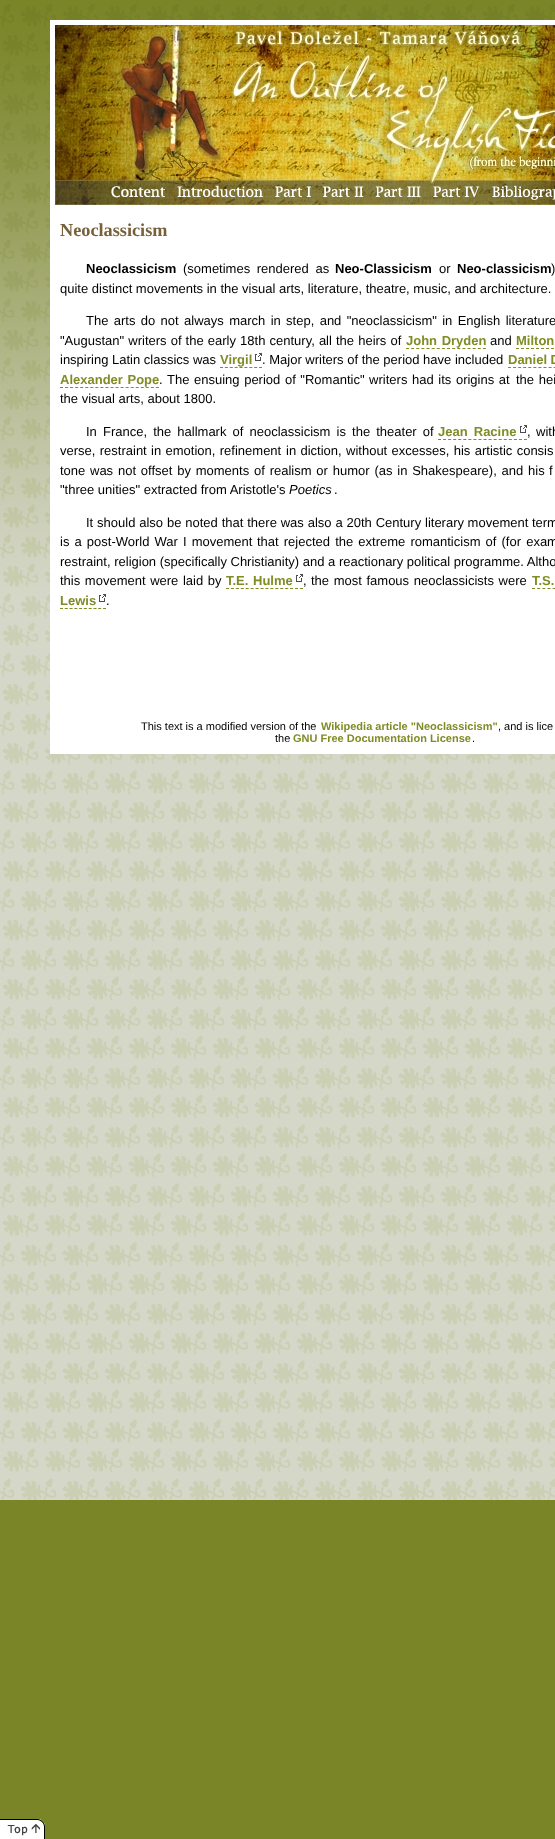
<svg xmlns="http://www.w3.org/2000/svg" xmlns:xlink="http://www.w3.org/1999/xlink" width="555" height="1839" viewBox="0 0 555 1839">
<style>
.cls-1{font:bold 18.25px Liberation Serif;fill:#78603a}
.cls-2{font:bold 13px Liberation Sans;fill:#000000}
.cls-3{font:13px Liberation Sans;fill:#000000}
.cls-4{font:bold 13px Liberation Sans;fill:#808c25}
.cls-5{font:italic 13px Liberation Sans;fill:#000000}
.cls-6{font:11px Liberation Sans;fill:#000000}
.cls-7{font:bold 11px Liberation Sans;fill:#808c25}
</style>
<rect width="100%" height="100%" fill="#7a8528"/>
<image xlink:href="image0.png" x="0" y="4" width="555" height="1496"/>
<rect fill="#ffffff" x="50" y="20" width="505" height="734"/>
<image xlink:href="image1.png" x="55" y="25" width="500" height="180"/>
<image xlink:href="image2.png" x="111" y="186" width="54" height="12"/>
<image xlink:href="image3.png" x="177" y="185" width="86" height="12"/>
<image xlink:href="image4.png" x="275" y="186" width="36" height="11"/>
<image xlink:href="image5.png" x="323" y="186" width="41" height="11"/>
<image xlink:href="image6.png" x="375" y="186" width="46" height="11"/>
<image xlink:href="image7.png" x="433" y="186" width="47" height="11"/>
<image xlink:href="image8.png" x="492" y="185" width="63" height="15"/>
<path fill="none" stroke="#808c25" stroke-dasharray="3 2.13" d="M406 348.5H486"/>
<path fill="none" stroke="#808c25" stroke-dasharray="3 2" d="M516 348.5H554"/>
<path fill="none" stroke="#808c25" stroke-dasharray="3 1.88" d="M220 367.5H262"/>
<image xlink:href="image9.png" x="255" y="353" width="7" height="8"/>
<path fill="none" stroke="#808c25" stroke-dasharray="3 2.07" d="M508 367.5H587"/>
<path fill="none" stroke="#808c25" stroke-dasharray="3 2.05" d="M60 387.5H159"/>
<path fill="none" stroke="#808c25" stroke-dasharray="3 2.06" d="M438 439.5H527"/>
<image xlink:href="image9.png" x="520" y="425" width="7" height="8"/>
<path fill="none" stroke="#808c25" stroke-dasharray="3 1.93" d="M226 588.5H303"/>
<image xlink:href="image9.png" x="296" y="574" width="7" height="8"/>
<path fill="none" stroke="#808c25" stroke-dasharray="3 2.17" d="M532 588.5H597"/>
<path fill="none" stroke="#808c25" stroke-dasharray="3 1.78" d="M60 608.5H106"/>
<image xlink:href="image9.png" x="99" y="594" width="7" height="8"/>
<image xlink:href="image10.png" x="0" y="1819" width="45" height="20"/>
<text class="cls-1" x="60" y="236">Neoclassicism</text>
<text class="cls-2" x="86" y="273">Neoclassicism</text>
<text class="cls-3" x="183" y="273" word-spacing="3">(sometimes rendered as</text>
<text class="cls-2" x="335" y="273">Neo-Classicism</text>
<text class="cls-3" x="439" y="273">or</text>
<text class="cls-2" x="457" y="273">Neo-classicism</text>
<text class="cls-3" x="551" y="273" word-spacing="3">)</text>
<text class="cls-3" x="60" y="293">quite distinct movements in the visual arts, literature, theatre, music, and architecture.</text>
<text class="cls-3" x="86" y="325" word-spacing="1.75">The arts do not always march in step, and "neoclassicism" in English literature</text>
<text class="cls-3" x="60" y="345" word-spacing="0.5">"Augustan" writers of the early 18th century, all the heirs of</text>
<text class="cls-4" x="406" y="345" word-spacing="1">John Dryden</text>
<text class="cls-3" x="490" y="345">and</text>
<text class="cls-4" x="516" y="345">Milton</text>
<text class="cls-3" x="60" y="364">inspiring Latin classics was</text>
<text class="cls-4" x="220" y="364">Virgil</text>
<text class="cls-3" x="262" y="364">. Major writers of the period have included</text>
<text class="cls-4" x="508" y="364">Daniel D</text>
<text class="cls-4" x="60" y="384" word-spacing="1">Alexander Pope</text>
<text class="cls-3" x="159" y="384">.</text>
<text class="cls-3" x="167" y="384" word-spacing="1">The ensuing period of "Romantic" writers had its origins at</text>
<text class="cls-3" x="516" y="384" word-spacing="1">the hei</text>
<text class="cls-3" x="60" y="403">the visual arts, about 1800.</text>
<text class="cls-3" x="86" y="436" word-spacing="2.5">In France, the hallmark of neoclassicism is the theater of</text>
<text class="cls-4" x="438" y="436" word-spacing="2.5">Jean Racine</text>
<text class="cls-3" x="527" y="436">,</text>
<text class="cls-3" x="536" y="436" word-spacing="2.5">with</text>
<text class="cls-3" x="60" y="455" word-spacing="0.75">verse, restraint in emotion, refinement</text>
<text class="cls-3" x="286" y="455" word-spacing="0.75">in diction, without excesses, his artistic consis</text>
<text class="cls-3" x="60" y="475">tone</text>
<text class="cls-3" x="90" y="475" word-spacing="1.2">was not offset by moments of realism or humor (as in Shakespeare), and his</text>
<text class="cls-3" x="549" y="475" word-spacing="1.2">f</text>
<text class="cls-3" x="60" y="494">"three unities" extracted from Aristotle's</text>
<text class="cls-5" x="289" y="494">Poetics</text>
<text class="cls-3" x="334" y="494">.</text>
<text class="cls-3" x="86" y="527" word-spacing="0.25">It should also be noted that there was also a 20th Century</text>
<text class="cls-3" x="425" y="527">literary movement term</text>
<text class="cls-3" x="60" y="546" word-spacing="1.5">is a post-World War I movement</text>
<text class="cls-3" x="257" y="546" word-spacing="1.5">that rejected the extreme romanticism of (for exam</text>
<text class="cls-3"><tspan x="60" y="566">restraint, religion (specifically Christianity) and a reactionary political programme. Altho</tspan><tspan x="60" y="585" word-spacing="1">this movement were laid by</tspan></text>
<text class="cls-4" x="226" y="585" word-spacing="1">T.E. Hulme</text>
<text class="cls-3" x="303" y="585">,</text>
<text class="cls-3" x="311" y="585" word-spacing="1">the most famous neoclassicists were</text>
<text class="cls-4" x="532" y="585" word-spacing="1">T.S.</text>
<text class="cls-4" x="60" y="605">Lewis</text>
<text class="cls-3" x="106" y="605">.</text>
<text class="cls-6" x="141" y="730">This text is a modified version of the</text>
<text class="cls-7" x="321" y="730">Wikipedia article "Neoclassicism"</text>
<text class="cls-6" x="498" y="730">, and is lice</text>
<text class="cls-6" x="275" y="742">the</text>
<text class="cls-7" x="293" y="742">GNU Free Documentation License</text>
<text class="cls-6" x="472" y="742">.</text>
</svg>
